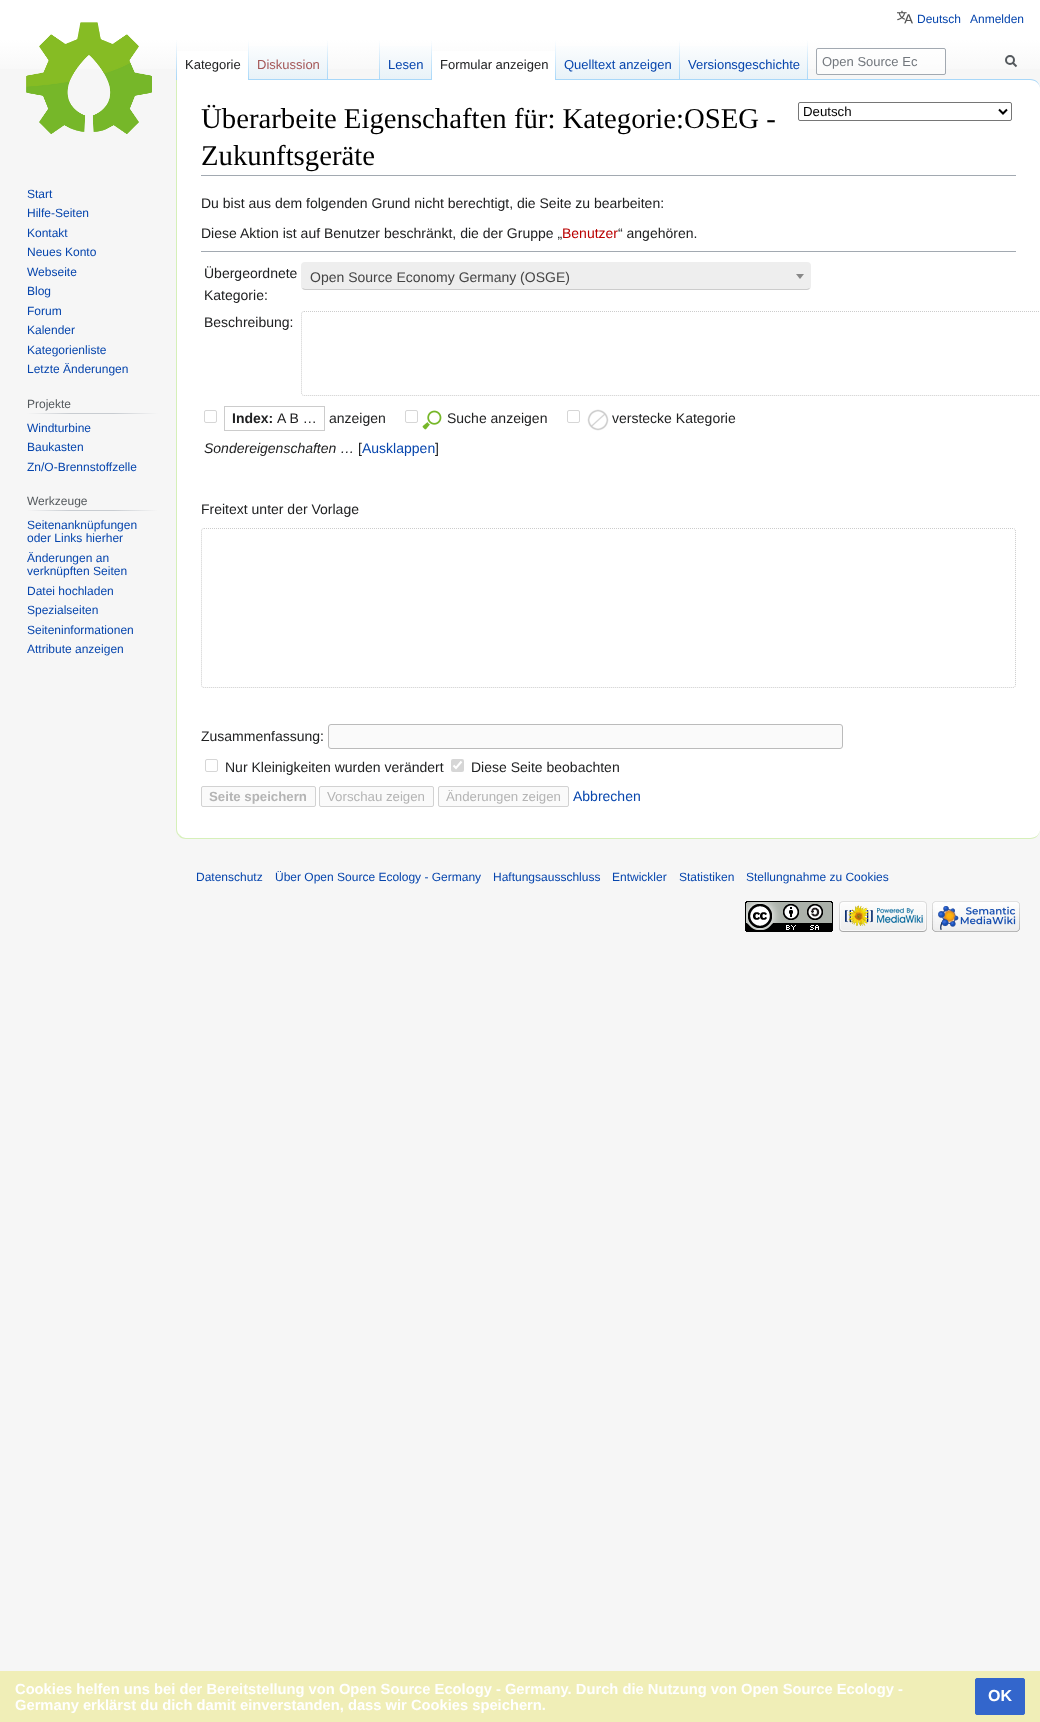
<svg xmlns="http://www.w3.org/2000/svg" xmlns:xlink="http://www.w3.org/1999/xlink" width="1040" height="1722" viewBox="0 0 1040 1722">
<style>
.cls-1{font:12px Liberation Sans;fill:#0645ad}
.cls-2{font:13px Liberation Sans;fill:#202122}
.cls-3{font:13px Liberation Sans;fill:#a55858}
.cls-4{font:13px Liberation Sans;fill:#0645ad}
.cls-5{font:13px Liberation Sans;fill:#72777d}
.cls-6{font:12px Liberation Sans;fill:#54595d}
.cls-7{font:28.75px Liberation Serif;fill:#000000}
.cls-8{font:13.25px Liberation Sans;fill:#000000}
.cls-9{font:14px Liberation Sans;fill:#202122}
.cls-10{font:14px Liberation Sans;fill:#ba0000}
.cls-11{font:14px Liberation Sans;fill:#444444}
.cls-12{font:bold 14px Liberation Sans;fill:#202122}
.cls-13{font:italic 14px Liberation Sans;fill:#202122}
.cls-14{font:14px Liberation Sans;fill:#0645ad}
.cls-15{font:bold 13.25px Liberation Sans;fill:#b4b4b4}
.cls-16{font:13.25px Liberation Sans;fill:#b4b4b4}
.cls-17{font:bold 14.72px Liberation Sans;fill:#ffffff}
.cls-18{font:bold 16px Liberation Sans;fill:#ffffff}
</style>
<defs>
<linearGradient id="g1" gradientUnits="userSpaceOnUse" x1="520" y1="0" x2="520" y2="80"><stop offset="0.5" stop-color="#ffffff"/><stop offset="1" stop-color="#f6f6f6"/></linearGradient>
<linearGradient id="g2" gradientUnits="userSpaceOnUse" x1="177" y1="40" x2="177" y2="80"><stop offset="0" stop-color="#a7d7f9" stop-opacity="0"/><stop offset="1" stop-color="#a7d7f9"/></linearGradient>
<linearGradient id="g3" gradientUnits="userSpaceOnUse" x1="249" y1="40" x2="249" y2="80"><stop offset="0" stop-color="#ffffff"/><stop offset="1" stop-color="#a7d7f9"/></linearGradient>
<linearGradient id="g4" gradientUnits="userSpaceOnUse" x1="289" y1="80" x2="289" y2="40"><stop offset="0" stop-color="#77c1f6"/><stop offset="0.03" stop-color="#e8f2f8"/><stop offset="1" stop-color="#ffffff"/></linearGradient>
<linearGradient id="g5" gradientUnits="userSpaceOnUse" x1="328" y1="40" x2="328" y2="80"><stop offset="0" stop-color="#a7d7f9" stop-opacity="0"/><stop offset="1" stop-color="#a7d7f9"/></linearGradient>
<linearGradient id="g6" gradientUnits="userSpaceOnUse" x1="380" y1="40" x2="380" y2="80"><stop offset="0" stop-color="#a7d7f9" stop-opacity="0"/><stop offset="1" stop-color="#a7d7f9"/></linearGradient>
<linearGradient id="g7" gradientUnits="userSpaceOnUse" x1="406" y1="80" x2="406" y2="40"><stop offset="0" stop-color="#77c1f6"/><stop offset="0.03" stop-color="#e8f2f8"/><stop offset="1" stop-color="#ffffff"/></linearGradient>
<linearGradient id="g8" gradientUnits="userSpaceOnUse" x1="432" y1="40" x2="432" y2="80"><stop offset="0" stop-color="#a7d7f9" stop-opacity="0"/><stop offset="1" stop-color="#a7d7f9"/></linearGradient>
<linearGradient id="g9" gradientUnits="userSpaceOnUse" x1="556" y1="40" x2="556" y2="80"><stop offset="0" stop-color="#ffffff"/><stop offset="1" stop-color="#a7d7f9"/></linearGradient>
<linearGradient id="g10" gradientUnits="userSpaceOnUse" x1="618" y1="80" x2="618" y2="40"><stop offset="0" stop-color="#77c1f6"/><stop offset="0.03" stop-color="#e8f2f8"/><stop offset="1" stop-color="#ffffff"/></linearGradient>
<linearGradient id="g11" gradientUnits="userSpaceOnUse" x1="680" y1="40" x2="680" y2="80"><stop offset="0" stop-color="#a7d7f9" stop-opacity="0"/><stop offset="1" stop-color="#a7d7f9"/></linearGradient>
<linearGradient id="g12" gradientUnits="userSpaceOnUse" x1="744" y1="80" x2="744" y2="40"><stop offset="0" stop-color="#77c1f6"/><stop offset="0.03" stop-color="#e8f2f8"/><stop offset="1" stop-color="#ffffff"/></linearGradient>
<linearGradient id="g13" gradientUnits="userSpaceOnUse" x1="808" y1="40" x2="808" y2="80"><stop offset="0" stop-color="#a7d7f9" stop-opacity="0"/><stop offset="1" stop-color="#a7d7f9"/></linearGradient>
<linearGradient id="g14" gradientUnits="userSpaceOnUse" x1="27" y1="414" x2="158" y2="414"><stop offset="0" stop-color="#f6f6f6"/><stop offset="0.33" stop-color="#c8ccd1"/><stop offset="0.66" stop-color="#c8ccd1"/><stop offset="1" stop-color="#f6f6f6"/></linearGradient>
<linearGradient id="g15" gradientUnits="userSpaceOnUse" x1="27" y1="511" x2="158" y2="511"><stop offset="0" stop-color="#f6f6f6"/><stop offset="0.33" stop-color="#c8ccd1"/><stop offset="0.66" stop-color="#c8ccd1"/><stop offset="1" stop-color="#f6f6f6"/></linearGradient>
</defs>
<rect width="100%" height="100%" fill="#f6f6f6"/>
<rect fill="url(#g1)" x="0" y="0" width="1040" height="69"/>
<image xlink:href="image0.png" x="897" y="10" width="16" height="14"/>
<path fill="#ffffff" d="M177 80H1030C1036 80 1040 84 1040 89V829C1040 834 1036 838 1030 838H186C181 838 177 834 177 829Z"/>
<path fill="#a7d7f9" d="M176 79L177 80H1030C1036 80 1040 84 1040 89C1040 83 1036 79 1030 79Z"/>
<path fill="#d6f0b9" d="M186 839H1030C1036 839 1040 835 1040 829C1040 834 1036 838 1030 838H186C184 838 181 837 180 835L179 836C180 838 183 839 186 839Z"/>
<path fill="#d6f0b9" d="M177 80L176 79V829C176 832 177 834 179 836L180 835C178 834 177 832 177 829Z"/>
<rect fill="url(#g2)" x="176" y="40" width="1" height="40"/>
<rect fill="#ffffff" x="177" y="51" width="71" height="29"/>
<rect fill="url(#g3)" x="248" y="40" width="1" height="40"/>
<rect fill="url(#g4)" x="249" y="46" width="79" height="33"/>
<rect fill="url(#g5)" x="327" y="40" width="1" height="40"/>
<rect fill="url(#g6)" x="379" y="40" width="1" height="40"/>
<rect fill="url(#g7)" x="380" y="46" width="52" height="33"/>
<rect fill="url(#g8)" x="431" y="40" width="1" height="40"/>
<rect fill="#ffffff" x="432" y="51" width="123" height="29"/>
<rect fill="url(#g9)" x="555" y="40" width="1" height="40"/>
<rect fill="url(#g10)" x="556" y="46" width="124" height="33"/>
<rect fill="url(#g11)" x="679" y="40" width="1" height="40"/>
<rect fill="url(#g12)" x="680" y="46" width="128" height="33"/>
<rect fill="url(#g13)" x="807" y="40" width="1" height="40"/>
<rect fill="#ffffff" fill-opacity="0.5" stroke="#a2a9b1" x="816.5" y="48.5" width="129" height="26" rx="1.5"/>
<path fill="none" stroke="#54595d" stroke-width="2" d="M1016.5 66.5L1012.5 62.5"/>
<circle fill="none" stroke="#54595d" stroke-width="2" cx="1010" cy="60" r="4"/>
<image xlink:href="image1.png" x="26" y="22" width="126" height="112"/>
<rect fill="url(#g14)" x="27" y="413" width="131" height="1"/>
<rect fill="url(#g15)" x="27" y="510" width="131" height="1"/>
<rect fill="#a2a9b1" x="201" y="175" width="815" height="1"/>
<rect fill="none" stroke="#767676" x="798.5" y="102.5" width="213" height="18" rx="1.5"/>
<path fill="none" stroke="#000000" stroke-width="2" d="M999 109.5L1003 113.5L1007 109.5"/>
<rect fill="#a2a9b1" x="201" y="251" width="815" height="1"/>
<rect fill="#eeeeee" x="301" y="262" width="510" height="28" rx="4"/>
<path fill="none" stroke="#cccccc" d="M809.5 288.5L807 289.5H305L302.5 288.5"/>
<path fill="#888888" d="M796 274H804L800 279Z"/>
<path fill="none" stroke="#cccccc" stroke-dasharray="1 1" d="M304 311.5H1039C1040.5 311.5 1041.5 312.5 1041.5 314V393C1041.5 394.5 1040.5 395.5 1039 395.5H304C302.5 395.5 301.5 394.5 301.5 393V314C301.5 312.5 302.5 311.5 304 311.5Z"/>
<rect fill="none" stroke="#d6d6d6" x="204.5" y="410.5" width="12" height="12" rx="1.5"/>
<rect fill="none" stroke="#cccccc" x="224.5" y="406.5" width="100" height="24"/>
<rect fill="none" stroke="#d6d6d6" x="405.5" y="410.5" width="12" height="12" rx="1.5"/>
<image xlink:href="image2.png" x="422" y="410" width="20" height="20"/>
<rect fill="none" stroke="#d6d6d6" x="567.5" y="410.5" width="12" height="12" rx="1.5"/>
<image xlink:href="image3.png" x="587" y="409" width="22" height="22"/>
<path fill="none" stroke="#cccccc" stroke-dasharray="1 1" d="M204 528.5H1013C1014.5 528.5 1015.5 529.5 1015.5 531V685C1015.5 686.5 1014.5 687.5 1013 687.5H204C202.5 687.5 201.5 686.5 201.5 685V531C201.5 529.5 202.5 528.5 204 528.5Z"/>
<rect fill="#fafafa" stroke="#bbbbbb" x="328.5" y="724.5" width="514" height="24" rx="2.5"/>
<rect fill="none" stroke="#d6d6d6" x="205.5" y="759.5" width="12" height="12" rx="1.5"/>
<rect fill="#d6d6d6" x="451" y="759" width="13" height="13" rx="2"/>
<path fill="none" stroke="#ffffff" stroke-width="2.1" d="M453.5 765.5L456 768L461.5 761.5"/>
<rect fill="#fafafa" stroke="#d2d2d2" x="201.5" y="786.5" width="114" height="20" rx="1.5"/>
<rect fill="#fafafa" stroke="#d2d2d2" x="319.5" y="786.5" width="114" height="20" rx="1.5"/>
<rect fill="#fafafa" stroke="#d2d2d2" x="438.5" y="786.5" width="130" height="20" rx="1.5"/>
<image xlink:href="image4.png" x="745" y="901" width="88" height="31"/>
<image xlink:href="image5.png" x="839" y="901" width="88" height="31"/>
<image xlink:href="image6.png" x="932" y="901" width="88" height="31"/>
<rect fill="#f0eeb7" x="0" y="1671" width="1040" height="51"/>
<rect fill="#3366cc" stroke="#3366cc" x="975.5" y="1678.5" width="49" height="36" rx="1.5"/>
<text class="cls-1" x="917" y="23">Deutsch</text>
<text class="cls-1" x="970" y="23">Anmelden</text>
<text class="cls-2" x="185" y="69">Kategorie</text>
<text class="cls-3" x="257" y="69">Diskussion</text>
<text class="cls-4" x="388" y="69">Lesen</text>
<text class="cls-2" x="440" y="69">Formular anzeigen</text>
<text class="cls-4" x="564" y="69">Quelltext anzeigen</text>
<text class="cls-4" x="688" y="69">Versionsgeschichte</text>
<text class="cls-5" x="822" y="66">Open Source Ec</text>
<text class="cls-1"><tspan x="27" y="198">Start</tspan><tspan x="27" y="217">Hilfe-Seiten</tspan><tspan x="27" y="237">Kontakt</tspan><tspan x="27" y="256">Neues Konto</tspan><tspan x="27" y="276">Webseite</tspan><tspan x="27" y="295">Blog</tspan><tspan x="27" y="315">Forum</tspan><tspan x="27" y="334">Kalender</tspan><tspan x="27" y="354">Kategorienliste</tspan><tspan x="27" y="373">Letzte Änderungen</tspan></text>
<text class="cls-6" x="27" y="408">Projekte</text>
<text class="cls-1"><tspan x="27" y="432">Windturbine</tspan><tspan x="27" y="451">Baukasten</tspan><tspan x="27" y="471">Zn/O-Brennstoffzelle</tspan></text>
<text class="cls-6" x="27" y="505">Werkzeuge</text>
<text class="cls-1"><tspan x="27" y="529">Seitenanknüpfungen</tspan><tspan x="27" y="542">oder Links hierher</tspan><tspan x="27" y="562">Änderungen an</tspan><tspan x="27" y="575">verknüpften Seiten</tspan><tspan x="27" y="595">Datei hochladen</tspan><tspan x="27" y="614">Spezialseiten</tspan><tspan x="27" y="634">Seiteninformationen</tspan><tspan x="27" y="653">Attribute anzeigen</tspan></text>
<text class="cls-7"><tspan x="201" y="128">Überarbeite Eigenschaften für: Kategorie:OSEG -</tspan><tspan x="201" y="165">Zukunftsgeräte</tspan></text>
<text class="cls-8" x="803" y="116">Deutsch</text>
<text class="cls-9" x="201" y="208">Du bist aus dem folgenden Grund nicht berechtigt, die Seite zu bearbeiten:</text>
<text class="cls-9" x="201" y="238">Diese Aktion ist auf Benutzer beschränkt, die der Gruppe „</text>
<text class="cls-10" x="562" y="238">Benutzer</text>
<text class="cls-9" x="618" y="238">“ angehören.</text>
<text class="cls-9"><tspan x="204" y="278">Übergeordnete</tspan><tspan x="204" y="300">Kategorie:</tspan></text>
<text class="cls-11" x="310" y="282">Open Source Economy Germany (OSGE)</text>
<text class="cls-9" x="204" y="327">Beschreibung:</text>
<text class="cls-12" x="232" y="423">Index:</text>
<text class="cls-9" x="277" y="423">A B …</text>
<text class="cls-9" x="329" y="423">anzeigen</text>
<text class="cls-9" x="447" y="423">Suche anzeigen</text>
<text class="cls-9" x="612" y="423">verstecke Kategorie</text>
<text class="cls-13" x="204" y="453">Sondereigenschaften …</text>
<text class="cls-9" x="358" y="453">[</text>
<text class="cls-14" x="362" y="453">Ausklappen</text>
<text class="cls-9" x="435" y="453">]</text>
<text class="cls-9" x="201" y="514">Freitext unter der Vorlage</text>
<text class="cls-9" x="201" y="741">Zusammenfassung:</text>
<text class="cls-9" x="225" y="772">Nur Kleinigkeiten wurden verändert</text>
<text class="cls-9" x="471" y="772">Diese Seite beobachten</text>
<text class="cls-15" x="209" y="801">Seite speichern</text>
<text class="cls-16" x="327" y="801">Vorschau zeigen</text>
<text class="cls-16" x="446" y="801">Änderungen zeigen</text>
<text class="cls-14" x="573" y="801">Abbrechen</text>
<text class="cls-1" x="196" y="881">Datenschutz</text>
<text class="cls-1" x="275" y="881">Über Open Source Ecology - Germany</text>
<text class="cls-1" x="493" y="881">Haftungsausschluss</text>
<text class="cls-1" x="612" y="881">Entwickler</text>
<text class="cls-1" x="679" y="881">Statistiken</text>
<text class="cls-1" x="746" y="881">Stellungnahme zu Cookies</text>
<text class="cls-17"><tspan x="15" y="1694">Cookies helfen uns bei der Bereitstellung von Open Source Ecology - Germany. Durch die Nutzung von Open Source Ecology -</tspan><tspan x="15" y="1710">Germany erklärst du dich damit einverstanden, dass wir Cookies speichern.</tspan></text>
<text class="cls-18" x="988" y="1701">OK</text>
</svg>
